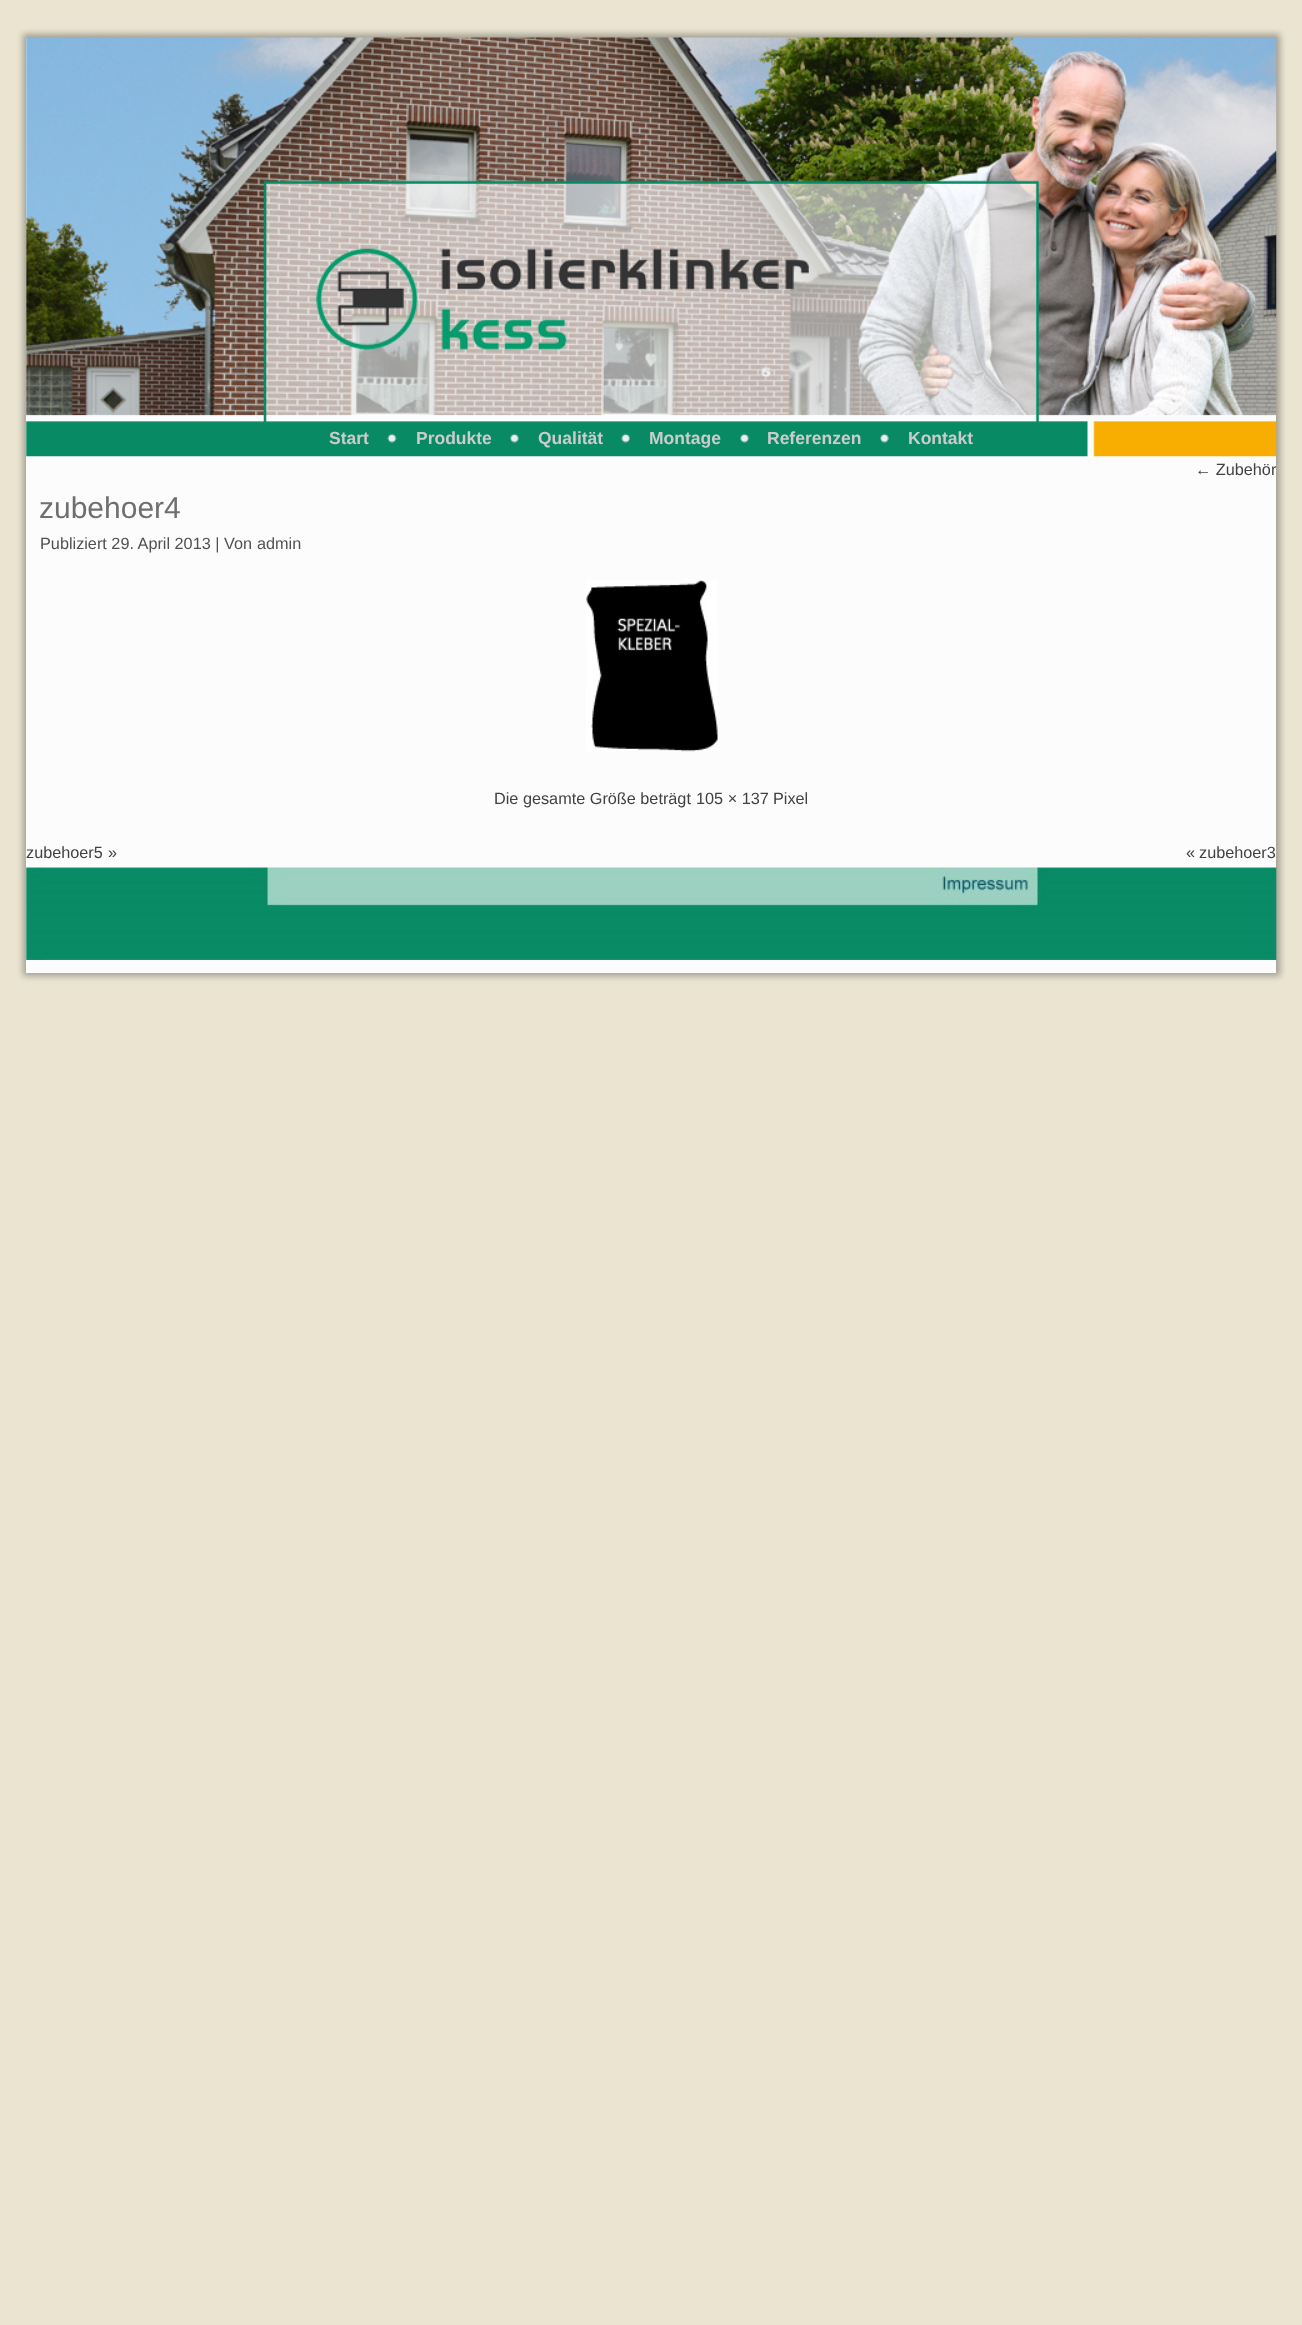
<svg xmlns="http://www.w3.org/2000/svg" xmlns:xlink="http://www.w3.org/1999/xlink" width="1302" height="2325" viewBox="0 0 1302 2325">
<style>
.cls-1{font:bold 17.5px Liberation Sans;fill:#cccccc}
.cls-2{font:16.25px Liberation Sans;fill:#424242}
.cls-3{font:30px Liberation Sans;fill:#6f6f6f}
.cls-4{font:16.25px Liberation Sans;fill:#515151}
</style>
<rect width="100%" height="100%" fill="#eae4d1"/>
<rect fill="#000000" fill-opacity="0.3" filter="blur(3px)" x="23" y="34" width="1257" height="942"/>
<rect fill="#fcfcfc" x="26" y="38" width="1250" height="935"/>
<image xlink:href="image0.png" x="26" y="37" width="1251" height="420"/>
<image xlink:href="image1.png" x="387" y="433" width="10" height="10"/>
<image xlink:href="image2.png" x="510" y="433" width="9" height="10"/>
<image xlink:href="image3.png" x="621" y="433" width="9" height="10"/>
<image xlink:href="image4.png" x="740" y="433" width="9" height="10"/>
<image xlink:href="image2.png" x="880" y="433" width="9" height="10"/>
<image xlink:href="image5.png" x="586" y="580" width="132" height="172"/>
<image xlink:href="image6.png" x="26" y="867" width="1251" height="93"/>
<text class="cls-1" x="329" y="444">Start</text>
<text class="cls-1" x="416" y="444">Produkte</text>
<text class="cls-1" x="538" y="444">Qualität</text>
<text class="cls-1" x="649" y="444">Montage</text>
<text class="cls-1" x="767" y="444">Referenzen</text>
<text class="cls-1" x="908" y="444">Kontakt</text>
<text class="cls-2" x="1195" y="475">← Zubehör</text>
<text class="cls-3" x="39" y="518">zubehoer4</text>
<text class="cls-4" x="40" y="549">Publiziert 29. April 2013 | Von</text>
<text class="cls-4" x="257" y="549">admin</text>
<text class="cls-2" x="494" y="804">Die gesamte Größe beträgt</text>
<text class="cls-2" x="696" y="804">105 × 137</text>
<text class="cls-2" x="773" y="804">Pixel</text>
<text class="cls-2" x="26" y="858">zubehoer5</text>
<text class="cls-2" x="108" y="858">»</text>
<text class="cls-2" x="1186" y="858">«</text>
<text class="cls-2" x="1199" y="858">zubehoer3</text>
</svg>
